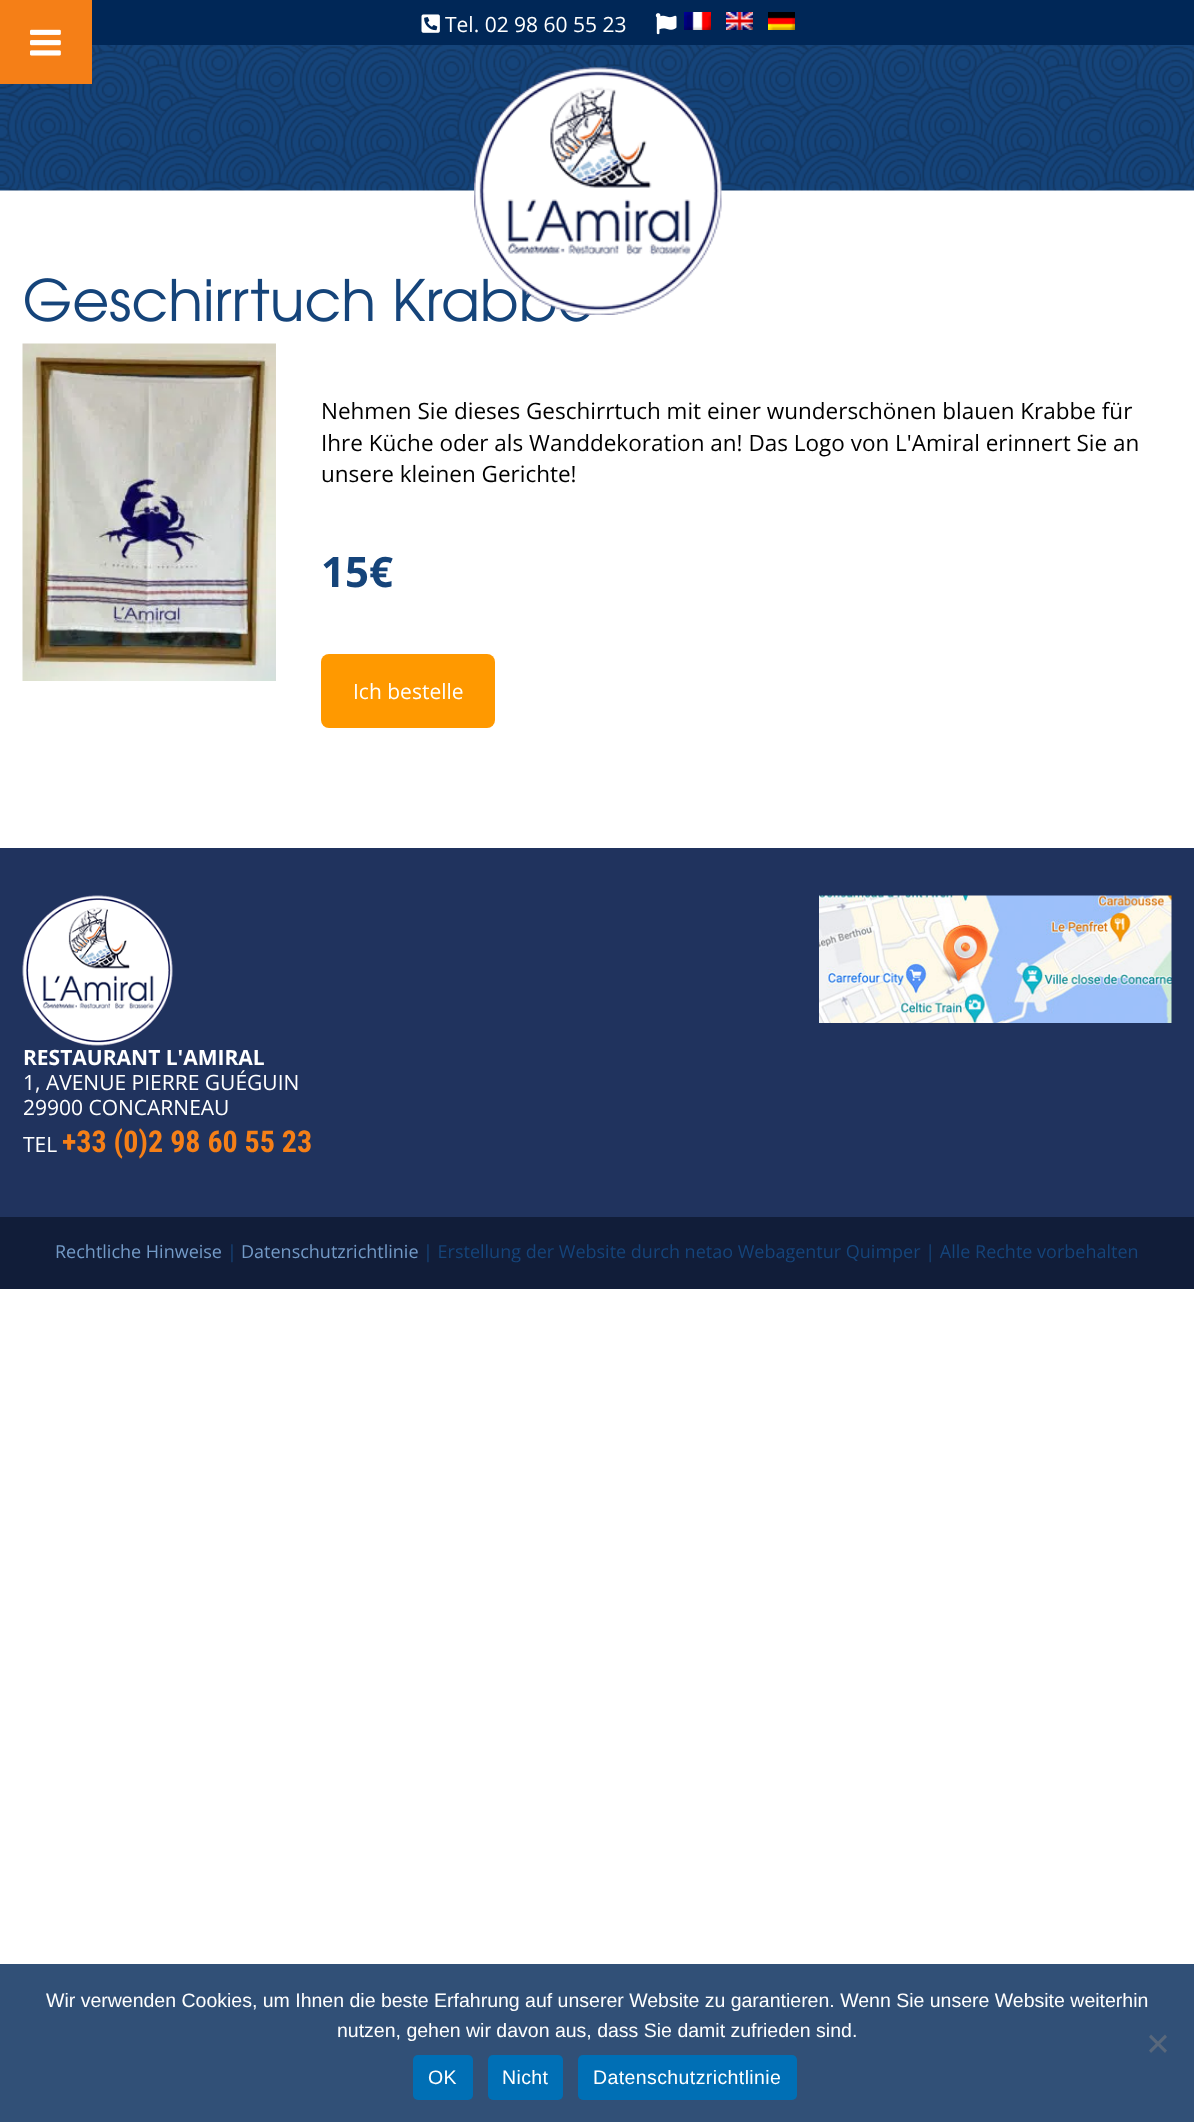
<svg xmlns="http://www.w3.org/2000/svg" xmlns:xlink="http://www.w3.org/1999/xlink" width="1194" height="2122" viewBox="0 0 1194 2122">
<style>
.cls-1{font:21px Open Sans;fill:#ffffff}
.cls-2{font:22.5px Open Sans;fill:#000000}
.cls-3{font:bold 42px Open Sans;fill:#15447a}
.cls-4{font:bold 21px Open Sans;fill:#ffffff}
.cls-5{font:bold 30px Roboto Condensed;fill:#f57f17}
.cls-6{font:18px Open Sans;fill:#739ac7}
.cls-7{font:18px Open Sans;fill:#15447a}
.cls-8{font:19.5px Liberation Sans;fill:#ffffff}
.cls-9{font:19.5px Liberation Sans;letter-spacing:0.4px;fill:#ffffff}
</style>
<rect width="100%" height="100%" fill="#ffffff"/>
<image xlink:href="image1.png" x="0" y="45" width="1194" height="146"/>
<rect fill="#f57f17" x="0" y="0" width="92" height="84"/>
<image xlink:href="image0.png" x="30" y="29" width="31" height="27"/>
<rect fill="#002757" x="92" y="0" width="1102" height="45"/>
<image xlink:href="image2.png" x="421" y="14" width="19" height="19"/>
<image xlink:href="image3.png" x="655" y="13" width="22" height="22"/>
<image xlink:href="image4.png" x="684" y="12" width="27" height="18"/>
<image xlink:href="image5.png" x="726" y="12" width="27" height="18"/>
<image xlink:href="image6.png" x="768" y="12" width="27" height="18"/>
<image xlink:href="image8.png" x="25" y="278" width="566" height="44"/>
<image xlink:href="image7.png" x="474" y="67" width="248" height="248"/>
<image xlink:href="image9.png" x="22" y="343" width="254" height="338"/>
<rect fill="#ff9900" x="321" y="654" width="174" height="74" rx="8"/>
<rect fill="#20335e" x="0" y="848" width="1194" height="369"/>
<image xlink:href="image10.png" x="819" y="895" width="353" height="128"/>
<image xlink:href="image11.png" x="22" y="895" width="151" height="151"/>
<rect fill="#111d39" x="0" y="1217" width="1194" height="72"/>
<rect fill="#315077" x="0" y="1964" width="1194" height="158"/>
<path fill="#59687c" d="M1165 2034.5L1167 2037L1151 2053L1149 2050.5Z"/>
<path fill="#59687c" d="M1149 2037L1151 2034.5L1167 2050.5L1165 2053Z"/>
<rect fill="#006fb5" x="413" y="2055" width="60" height="45" rx="5"/>
<rect fill="#006fb5" x="488" y="2055" width="75" height="45" rx="5"/>
<rect fill="#006fb5" x="578" y="2055" width="219" height="45" rx="5"/>
<text class="cls-1" x="445" y="32">Tel. 02 98 60 55 23</text>
<text class="cls-2"><tspan x="321" y="419">Nehmen Sie dieses Geschirrtuch mit einer wunderschönen blauen Krabbe für</tspan><tspan x="321" y="451">Ihre Küche oder als Wanddekoration an! Das Logo von L'Amiral erinnert Sie an</tspan><tspan x="321" y="482">unsere kleinen Gerichte!</tspan></text>
<text class="cls-3" x="321" y="587">15€</text>
<text class="cls-1" x="353" y="699">Ich bestelle</text>
<text class="cls-4" x="23" y="1065">RESTAURANT L'AMIRAL</text>
<text class="cls-1"><tspan x="23" y="1090">1, AVENUE PIERRE GUÉGUIN</tspan><tspan x="23" y="1115">29900 CONCARNEAU</tspan><tspan x="23" y="1152">TEL</tspan></text>
<text class="cls-5" x="62" y="1152">+33 (0)2 98 60 55 23</text>
<text class="cls-6" x="55" y="1258">Rechtliche Hinweise</text>
<text class="cls-7" x="227" y="1258">|</text>
<text class="cls-6" x="241" y="1258">Datenschutzrichtlinie</text>
<text class="cls-7" x="423" y="1258">| Erstellung der Website durch netao Webagentur Quimper | Alle Rechte vorbehalten</text>
<text class="cls-8" x="46" y="2007">Wir verwenden Cookies, um Ihnen die beste Erfahrung auf unserer Website zu garantieren. Wenn Sie unsere Website weiterhin</text>
<text class="cls-8" x="337" y="2037">nutzen, gehen wir davon aus, dass Sie damit zufrieden sind.</text>
<text class="cls-9" x="428" y="2084">OK</text>
<text class="cls-9" x="502" y="2084">Nicht</text>
<text class="cls-9" x="593" y="2084">Datenschutzrichtlinie</text>
</svg>
